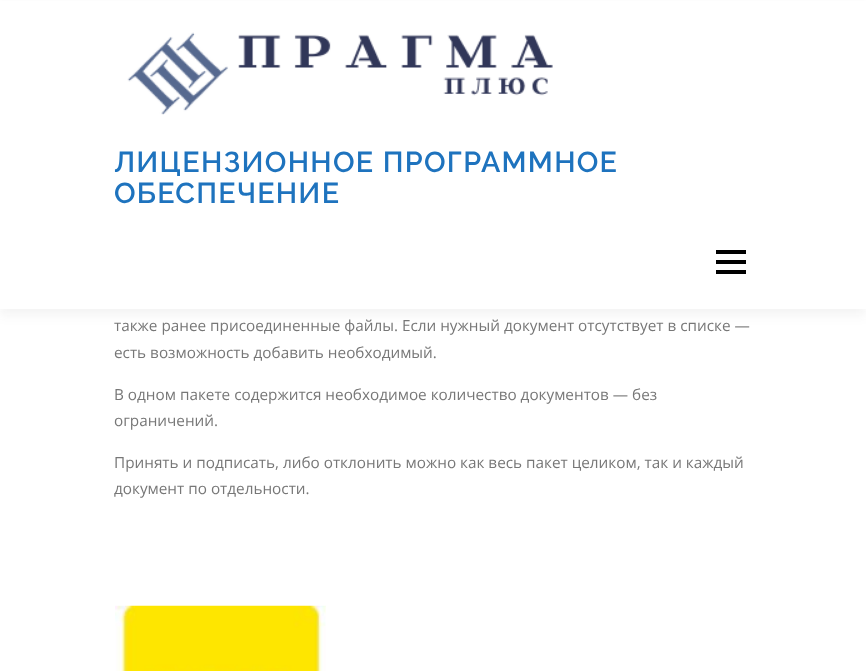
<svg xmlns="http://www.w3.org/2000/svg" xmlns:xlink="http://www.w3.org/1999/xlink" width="866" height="671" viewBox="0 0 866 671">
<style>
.cls-1{font:600 28.75px Raleway;letter-spacing:1.25px;fill:#1e73be}
.cls-2{font:15.3px Open Sans;fill:#777777}
</style>
<rect width="100%" height="100%" fill="#ffffff"/>
<rect fill="#323232" fill-opacity="0.06" filter="blur(6px)" x="0" y="6" width="866" height="309"/>
<rect fill="#ffffff" x="0" y="1" width="866" height="308"/>
<image xlink:href="image0.png" x="127" y="32" width="426" height="83"/>
<rect fill="#000000" x="716" y="260" width="30" height="4"/>
<rect fill="#000000" x="716" y="250" width="30" height="4"/>
<rect fill="#000000" x="716" y="270" width="30" height="4"/>
<image xlink:href="image1.png" x="115" y="605" width="211" height="66"/>
<text class="cls-1"><tspan x="114" y="172">ЛИЦЕНЗИОННОЕ ПРОГРАММНОЕ</tspan><tspan x="114" y="203">ОБЕСПЕЧЕНИЕ</tspan></text>
<text class="cls-2"><tspan x="114" y="331">также ранее присоединенные файлы. Если нужный документ отсутствует в списке —</tspan><tspan x="114" y="358">есть возможность добавить необходимый.</tspan></text>
<text class="cls-2"><tspan x="114" y="400">В одном пакете содержится необходимое количество документов — без</tspan><tspan x="114" y="426">ограничений.</tspan></text>
<text class="cls-2"><tspan x="114" y="468">Принять и подписать, либо отклонить можно как весь пакет целиком, так и каждый</tspan><tspan x="114" y="494">документ по отдельности.</tspan></text>
</svg>
